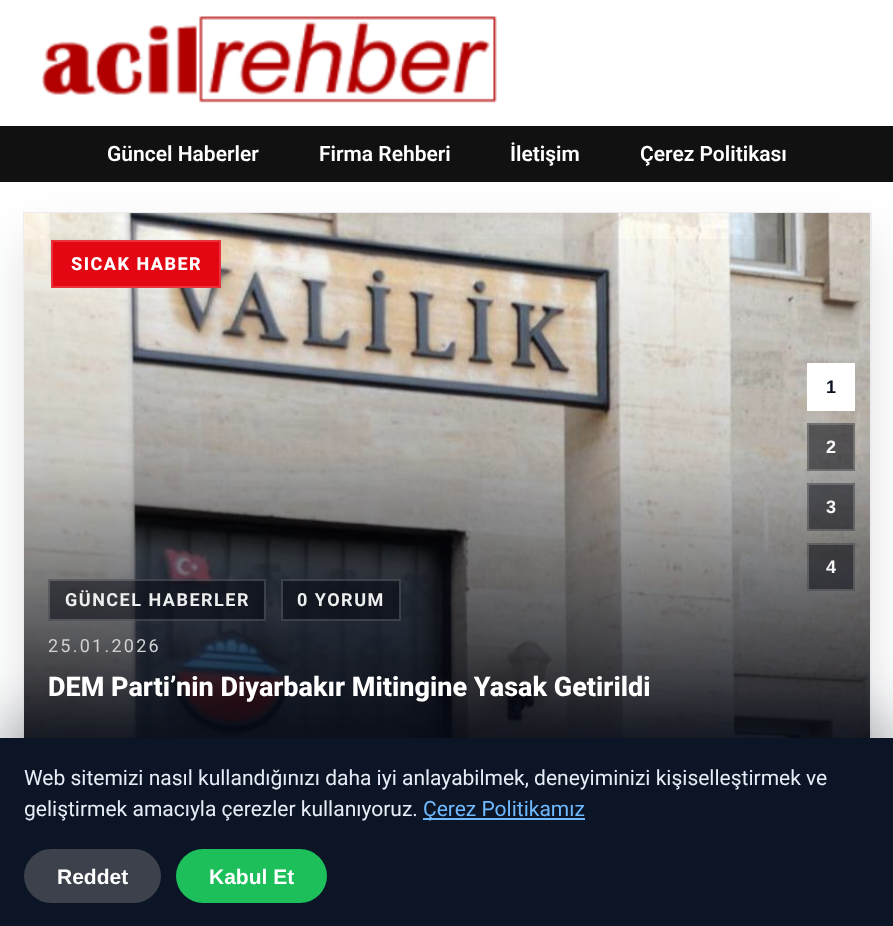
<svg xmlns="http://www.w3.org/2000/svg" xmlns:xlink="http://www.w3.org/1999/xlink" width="893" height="926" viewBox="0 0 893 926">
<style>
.cls-1{font:600 21px Roboto;fill:#ffffff}
.cls-2{font:800 18px Roboto;letter-spacing:1.5px;fill:#ffffff}
.cls-3{font:bold 18px Roboto;letter-spacing:1.5px;fill:#edeeee}
.cls-4{font:18px Roboto;letter-spacing:2.25px;fill:#d1d1d2}
.cls-5{font:800 27px Roboto;fill:#ffffff}
.cls-6{font:bold 18px Liberation Sans;fill:#0b1120}
.cls-7{font:bold 18px Liberation Sans;fill:#f6f6f6}
.cls-8{font:21px Roboto;fill:#e7ecf6}
.cls-9{font:21px Roboto;fill:#6fb9ff}
.cls-10{font:bold 21px Liberation Sans;fill:#ffffff}
</style>
<defs>
<linearGradient id="g1" gradientUnits="userSpaceOnUse" x1="447" y1="743" x2="447" y2="213"><stop offset="0" stop-color="#050710" stop-opacity="0.92"/><stop offset="0.55" stop-color="#050710" stop-opacity="0.2"/><stop offset="1" stop-color="#050710" stop-opacity="0"/></linearGradient>
</defs>
<rect width="100%" height="100%" fill="#ffffff"/>
<image xlink:href="image0.png" x="41" y="16" width="456" height="87"/>
<rect fill="#111111" x="0" y="126" width="893" height="56"/>
<rect fill="#101828" fill-opacity="0.12" filter="blur(26px)" x="23" y="239" width="849" height="532"/>
<rect fill="none" stroke="#ececee" stroke-width="2" x="24" y="213" width="847" height="530"/>
<image xlink:href="image1.png" x="24" y="213" width="846" height="525"/>
<rect fill="url(#g1)" x="24" y="239" width="846" height="499"/>
<rect fill="#e30613" stroke="#e8333d" stroke-width="2" x="52" y="241" width="168" height="46"/>
<rect fill="#050710" fill-opacity="0.55" x="48" y="579" width="218" height="42"/>
<rect fill="none" stroke="#ffffff" stroke-opacity="0.18" stroke-width="2" x="49" y="580" width="216" height="40"/>
<rect fill="#050710" fill-opacity="0.55" x="281" y="579" width="120" height="42"/>
<rect fill="none" stroke="#ffffff" stroke-opacity="0.18" stroke-width="2" x="282" y="580" width="118" height="40"/>
<rect fill="#ffffff" x="807" y="363" width="48" height="48"/>
<rect fill="#050710" fill-opacity="0.55" x="807" y="423" width="48" height="48"/>
<rect fill="none" stroke="#ffffff" stroke-opacity="0.18" stroke-width="2" x="808" y="424" width="46" height="46"/>
<rect fill="#050710" fill-opacity="0.55" x="807" y="483" width="48" height="48"/>
<rect fill="none" stroke="#ffffff" stroke-opacity="0.18" stroke-width="2" x="808" y="484" width="46" height="46"/>
<rect fill="#050710" fill-opacity="0.55" x="807" y="543" width="48" height="48"/>
<rect fill="none" stroke="#ffffff" stroke-opacity="0.18" stroke-width="2" x="808" y="544" width="46" height="46"/>
<rect fill="#0c1522" fill-opacity="0.35" filter="blur(30px)" x="0" y="720" width="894" height="189"/>
<rect fill="#0b1526" x="0" y="738" width="893" height="188"/>
<rect fill="#6fb9ff" x="423" y="818" width="162" height="2"/>
<rect fill="#3c414b" x="24" y="849" width="137" height="54" rx="27"/>
<rect fill="#1dbf5b" x="176" y="849" width="151" height="54" rx="27"/>
<text class="cls-1" x="107" y="161">Güncel Haberler</text>
<text class="cls-1" x="319" y="161">Firma Rehberi</text>
<text class="cls-1" x="510" y="161">İletişim</text>
<text class="cls-1" x="640" y="161">Çerez Politikası</text>
<text class="cls-2" x="71" y="270">SICAK HABER</text>
<text class="cls-3" x="65" y="606">GÜNCEL HABERLER</text>
<text class="cls-3" x="297" y="606">0 YORUM</text>
<text class="cls-4" x="48" y="652">25.01.2026</text>
<text class="cls-5" x="48" y="696">DEM Parti’nin Diyarbakır Mitingine Yasak Getirildi</text>
<text class="cls-6" x="826" y="393">1</text>
<text class="cls-7" x="826" y="453">2</text>
<text class="cls-7" x="826" y="513">3</text>
<text class="cls-7" x="826" y="573">4</text>
<text class="cls-8"><tspan x="24" y="785">Web sitemizi nasıl kullandığınızı daha iyi anlayabilmek, deneyiminizi kişiselleştirmek ve</tspan><tspan x="24" y="816">geliştirmek amacıyla çerezler kullanıyoruz.</tspan></text>
<text class="cls-9" x="423" y="816">Çerez Politikamız</text>
<text class="cls-10" x="57" y="884">Reddet</text>
<text class="cls-10" x="209" y="884">Kabul Et</text>
</svg>
